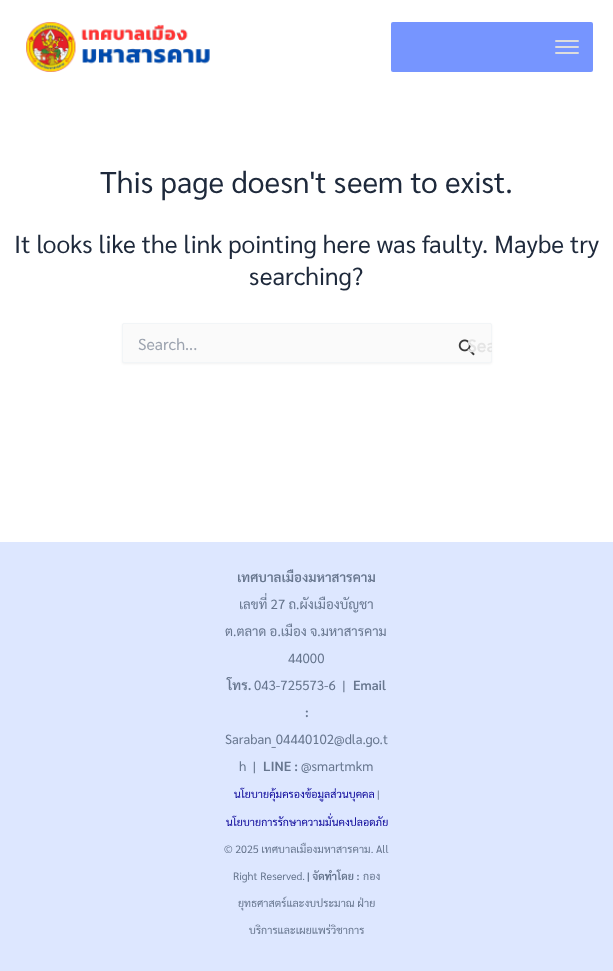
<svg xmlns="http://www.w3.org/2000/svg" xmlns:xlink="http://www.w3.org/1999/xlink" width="613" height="971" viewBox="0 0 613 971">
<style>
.cls-1{font:30px Sarabun;fill:#1e293b}
.cls-2{font:24.6px Sarabun;fill:#1e293b}
.cls-3{font:16px Sarabun;fill:#9ca3af}
.cls-4{font:600 18px Sarabun;fill:#e4e4e4}
.cls-5{font:600 13.25px Sarabun;fill:#67768e}
.cls-6{font:13.25px Sarabun;fill:#67768e}
.cls-7{font:10.7px Sarabun;fill:#060097}
.cls-8{font:10.7px Sarabun;fill:#67768e}
.cls-9{font:600 10.7px Sarabun;fill:#67768e}
</style>
<defs>
<clipPath id="clip1"><rect x="447" y="323" width="45" height="45" rx="2"/></clipPath>
</defs>
<rect width="100%" height="100%" fill="#ffffff"/>
<image xlink:href="image0.png" x="26" y="22" width="184" height="50"/>
<rect fill="#7695ff" x="391" y="22" width="202" height="50" rx="2"/>
<rect fill="#dddddd" x="555" y="40" width="24" height="2" rx="1"/>
<rect fill="#dddddd" x="555" y="46" width="24" height="2" rx="1"/>
<rect fill="#dddddd" x="555" y="52" width="24" height="2" rx="1"/>
<rect fill="#000000" fill-opacity="0.05" filter="blur(1px)" x="122" y="324" width="370" height="40" rx="2"/>
<rect fill="#fafafa" stroke="#f2f5f7" x="122.5" y="323.5" width="369" height="39" rx="1.5"/>
<image xlink:href="image1.png" x="458" y="339" width="17" height="17"/>
<rect fill="#dde7ff" x="0" y="542" width="613" height="429"/>
<text class="cls-1" x="100" y="193">This page doesn't seem to exist.</text>
<text class="cls-2" x="14" y="253">It looks like the link pointing here was faulty. Maybe try</text>
<text class="cls-2" x="249" y="285">searching?</text>
<text class="cls-3" x="138" y="350">Search...</text>
<g clip-path="url(#clip1)">
<text class="cls-4" x="467" y="352">Sea</text>
</g>
<text class="cls-5" x="237" y="582">เทศบาลเมืองมหาสารคาม</text>
<text class="cls-6" x="239" y="609">เลขที่ 27 ถ.ผังเมืองบัญชา</text>
<text class="cls-6" x="225" y="636">ต.ตลาด อ.เมือง จ.มหาสารคาม</text>
<text class="cls-6" x="288" y="663">44000</text>
<text class="cls-5" x="227" y="690">โทร.</text>
<text class="cls-6" xml:space="preserve" x="254" y="690">043-725573-6  |</text>
<text class="cls-5" x="353" y="690">Email</text>
<text class="cls-5" x="305" y="717">:</text>
<text class="cls-6" x="225" y="744">Saraban_04440102@dla.go.t</text>
<text class="cls-6" xml:space="preserve" x="239" y="771">h  |</text>
<text class="cls-5" x="263" y="771">LINE :</text>
<text class="cls-6" x="301" y="771">@smartmkm</text>
<text class="cls-7" x="234" y="798">นโยบายคุ้มครองข้อมูลส่วนบุคคล</text>
<text class="cls-8" x="377" y="798">|</text>
<text class="cls-7" x="226" y="826">นโยบายการรักษาความมั่นคงปลอดภัย</text>
<text class="cls-8" x="224" y="853">© 2025 เทศบาลเมืองมหาสารคาม. All</text>
<text class="cls-8" x="233" y="880">Right Reserved.</text>
<text class="cls-9" x="307" y="880">| จัดทำโดย :</text>
<text class="cls-8" x="363" y="880">กอง</text>
<text class="cls-8" x="238" y="907">ยุทธศาสตร์และงบประมาณ ฝ่าย</text>
<text class="cls-8" x="249" y="934">บริการและเผยแพร่วิชาการ</text>
</svg>
